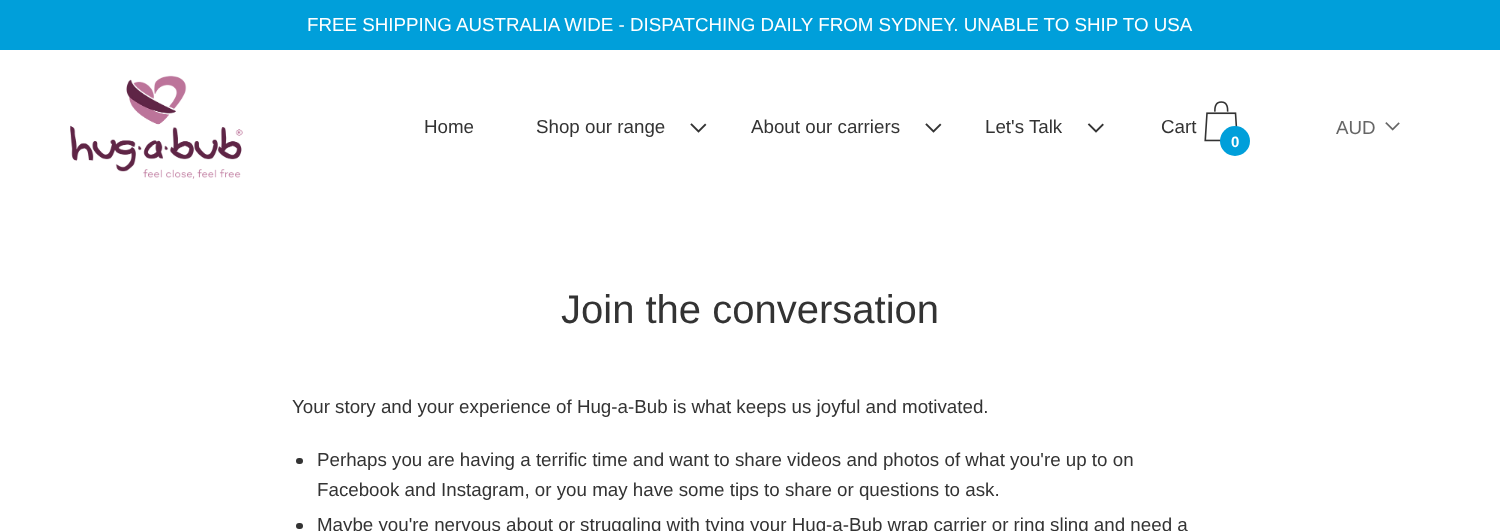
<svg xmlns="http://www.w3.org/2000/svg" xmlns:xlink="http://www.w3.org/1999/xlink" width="1500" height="531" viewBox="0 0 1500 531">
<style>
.cls-1{font:18.75px Liberation Sans;fill:#ffffff}
.cls-2{font:18.75px Liberation Sans;fill:#333333}
.cls-3{font:bold 15px Liberation Sans;fill:#ffffff}
.cls-4{font:18.75px Liberation Sans;fill:#666666}
.cls-5{font:40px Liberation Sans;fill:#333333}
</style>
<rect width="100%" height="100%" fill="#ffffff"/>
<rect fill="#009fda" x="0" y="0" width="1500" height="50"/>
<image xlink:href="image0.png" x="70" y="75" width="173" height="104"/>
<image xlink:href="image1.png" x="690" y="123" width="17" height="10"/>
<image xlink:href="image1.png" x="925" y="123" width="17" height="10"/>
<image xlink:href="image2.png" x="1087" y="123" width="17" height="10"/>
<image xlink:href="image3.png" x="1204" y="101" width="34" height="41"/>
<circle fill="#009fda" cx="1235" cy="141" r="15"/>
<image xlink:href="image4.png" x="1385" y="122" width="15" height="9"/>
<rect fill="#333333" x="296" y="458" width="7" height="6" rx="3"/>
<rect fill="#333333" x="296" y="523" width="7" height="6" rx="3"/>
<text class="cls-1" x="307" y="31">FREE SHIPPING AUSTRALIA WIDE - DISPATCHING DAILY FROM SYDNEY. UNABLE TO SHIP TO USA</text>
<text class="cls-2" x="424" y="133">Home</text>
<text class="cls-2" x="536" y="133">Shop our range</text>
<text class="cls-2" x="751" y="133">About our carriers</text>
<text class="cls-2" x="985" y="133">Let's Talk</text>
<text class="cls-2" x="1161" y="133">Cart</text>
<text class="cls-3" x="1231" y="147">0</text>
<text class="cls-4" x="1336" y="134">AUD</text>
<text class="cls-5" x="561" y="323">Join the conversation</text>
<text class="cls-2" x="292" y="413">Your story and your experience of Hug-a-Bub is what keeps us joyful and motivated.</text>
<text class="cls-2"><tspan x="317" y="466">Perhaps you are having a terrific time and want to share videos and photos of what you're up to on</tspan><tspan x="317" y="496">Facebook and Instagram, or you may have some tips to share or questions to ask.</tspan><tspan x="317" y="531">Maybe you're nervous about or struggling with tying your Hug-a-Bub wrap carrier or ring sling and need a</tspan></text>
</svg>
